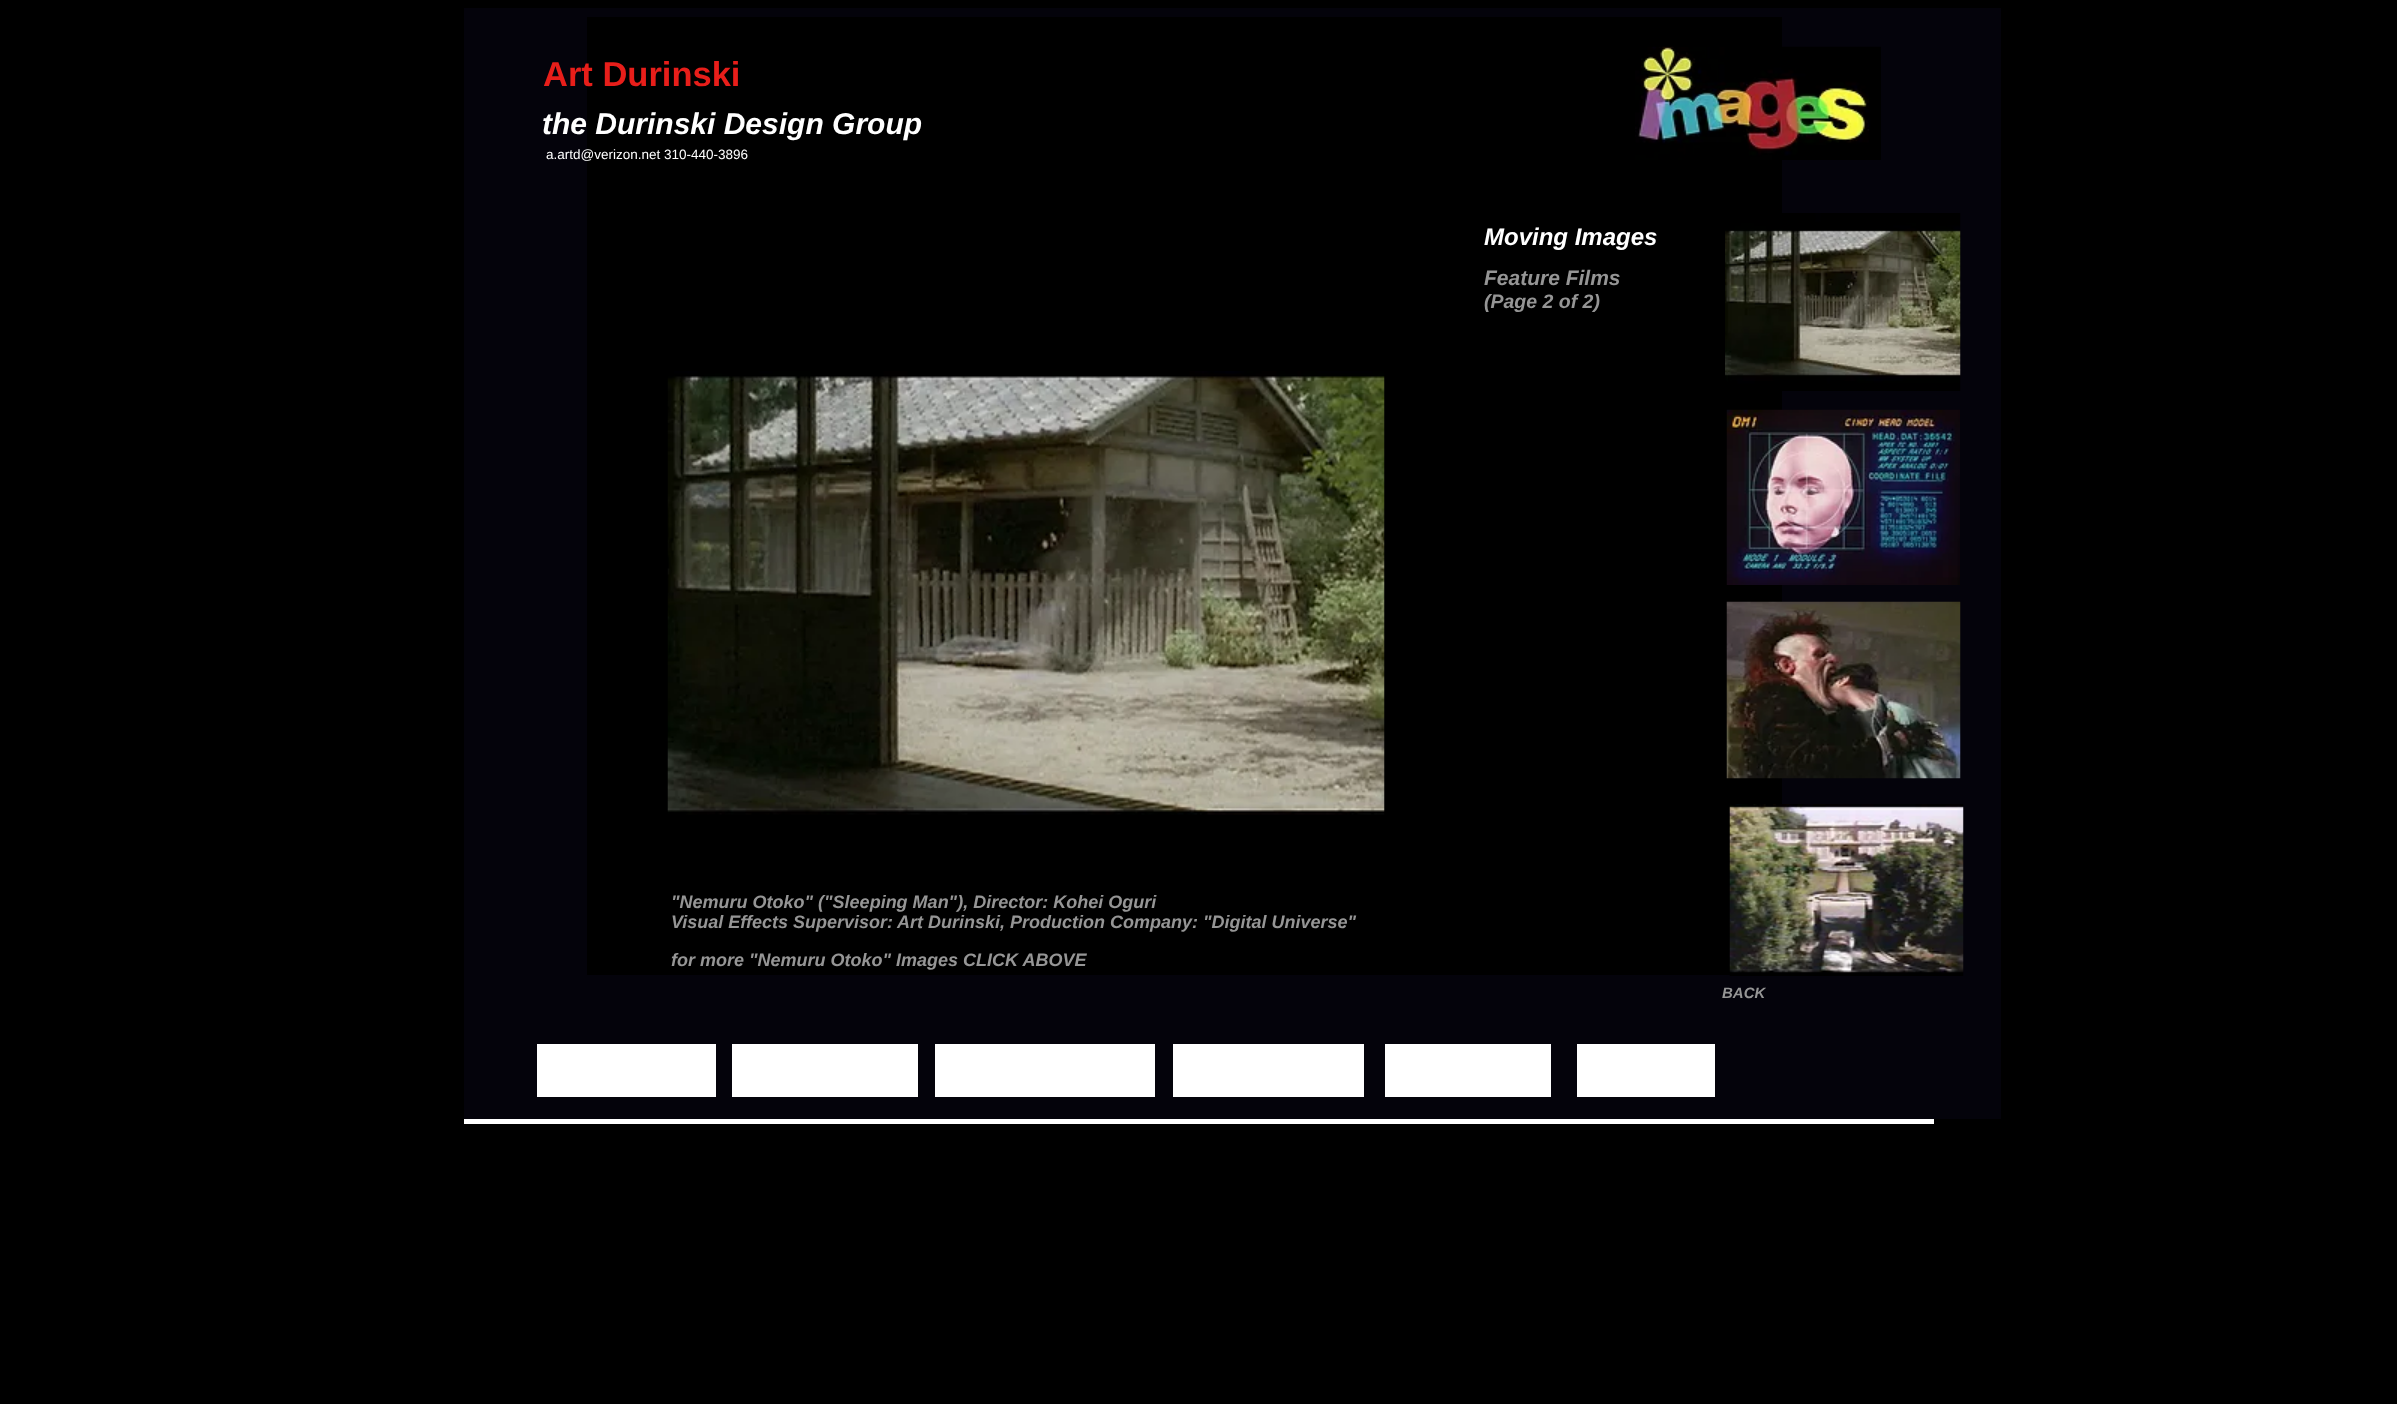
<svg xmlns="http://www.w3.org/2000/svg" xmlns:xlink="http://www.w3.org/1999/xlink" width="2397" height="1404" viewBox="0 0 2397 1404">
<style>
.cls-1{font:bold 34.5px Liberation Sans;fill:#e81e1a}
.cls-2{font:italic bold 30px Liberation Sans;fill:#ffffff}
.cls-3{font:13.5px Liberation Sans;fill:#ffffff}
.cls-4{font:italic bold 24px Liberation Sans;fill:#ffffff}
.cls-5{font:italic bold 21px Liberation Sans;fill:#959595}
.cls-6{font:italic bold 19.5px Liberation Sans;fill:#959595}
.cls-7{font:italic bold 18px Liberation Sans;fill:#959595}
.cls-8{font:italic bold 15px Liberation Sans;fill:#959595}
</style>
<rect width="100%" height="100%" fill="#000000"/>
<rect fill="#04030b" x="464" y="8" width="1537" height="1111"/>
<rect fill="#000000" x="587" y="17" width="1195" height="958"/>
<image xlink:href="image0.png" x="1635" y="46" width="246" height="114"/>
<image xlink:href="image1.png" x="1725" y="213" width="236" height="178"/>
<image xlink:href="image2.png" x="667" y="371" width="718" height="444"/>
<image xlink:href="image3.png" x="1726" y="409" width="234" height="176"/>
<image xlink:href="image4.png" x="1726" y="601" width="235" height="178"/>
<image xlink:href="image5.png" x="1729" y="804" width="235" height="172"/>
<rect fill="#ffffff" x="537" y="1044" width="179" height="53"/>
<rect fill="#ffffff" x="732" y="1044" width="186" height="53"/>
<rect fill="#ffffff" x="935" y="1044" width="220" height="53"/>
<rect fill="#ffffff" x="1173" y="1044" width="191" height="53"/>
<rect fill="#ffffff" x="1385" y="1044" width="166" height="53"/>
<rect fill="#ffffff" x="1577" y="1044" width="138" height="53"/>
<rect fill="#ffffff" x="464" y="1119" width="1470" height="5"/>
<text class="cls-1" x="543" y="86">Art Durinski</text>
<text class="cls-2" x="542" y="134">the Durinski Design Group</text>
<text class="cls-3" x="546" y="159">a.artd@verizon.net 310-440-3896</text>
<text class="cls-4" x="1484" y="245">Moving Images</text>
<text class="cls-5" x="1484" y="285">Feature Films</text>
<text class="cls-6" x="1484" y="308">(Page 2 of 2)</text>
<text class="cls-7"><tspan x="671" y="908">"Nemuru Otoko" ("Sleeping Man"), Director: Kohei Oguri</tspan><tspan x="671" y="928">Visual Effects Supervisor:</tspan></text>
<text class="cls-7" x="897" y="928">Art Durinski, Production Company: "Digital Universe"</text>
<text class="cls-7" x="671" y="966">for more "Nemuru Otoko" Images CLICK ABOVE</text>
<text class="cls-8" x="1722" y="998">BACK</text>
</svg>
